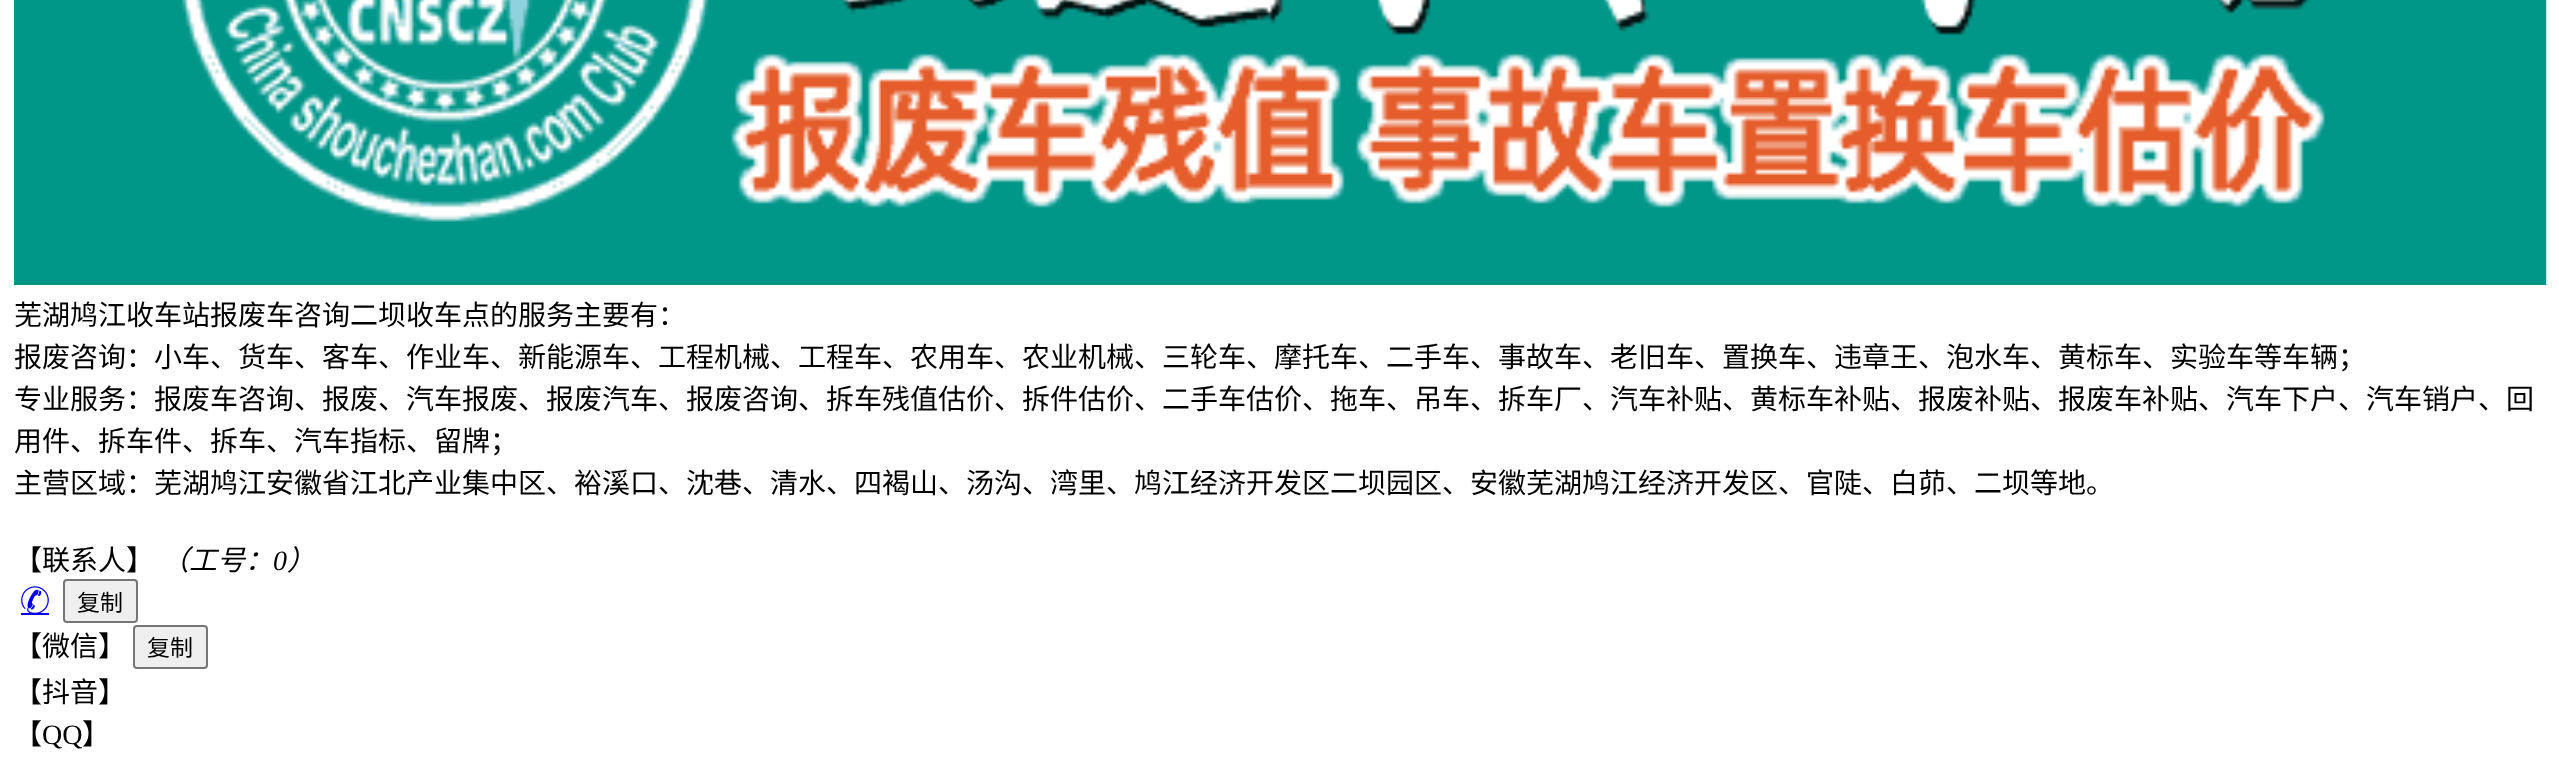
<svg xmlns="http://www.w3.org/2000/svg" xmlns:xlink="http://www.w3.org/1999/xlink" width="2559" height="780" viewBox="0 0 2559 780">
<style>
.cls-1{font:28px Noto Sans CJK SC;fill:#000000}
.cls-2{font:italic 28px Noto Sans CJK SC;fill:#000000}
.cls-3{font:italic 28px Liberation Serif;fill:#000000}
.cls-4{font:23px Noto Sans CJK SC;fill:#000000}
.cls-5{font:28px Liberation Serif;fill:#000000}
</style>
<rect width="100%" height="100%" fill="#ffffff"/>
<image xlink:href="image0.png" x="14" y="0" width="2533" height="285"/>
<image xlink:href="image1.png" x="21" y="586" width="28" height="27"/>
<rect fill="#efefef" stroke="#767676" stroke-width="2" x="64" y="580" width="73" height="42" rx="3"/>
<rect fill="#0000ee" x="21" y="613" width="28" height="2"/>
<rect fill="#efefef" stroke="#767676" stroke-width="2" x="134" y="626" width="73" height="42" rx="3"/>
<text class="cls-1"><tspan x="14" y="325">芜湖鸠江收车站报废车咨询二坝收车点的服务主要有：</tspan><tspan x="14" y="367">报废咨询：小车、货车、客车、作业车、新能源车、工程机械、工程车、农用车、农业机械、三轮车、摩托车、二手车、事故车、老旧车、置换车、违章王、泡水车、黄标车、实验车等车辆；</tspan><tspan x="14" y="409">专业服务：报废车咨询、报废、汽车报废、报废汽车、报废咨询、拆车残值估价、拆件估价、二手车估价、拖车、吊车、拆车厂、汽车补贴、黄标车补贴、报废补贴、报废车补贴、汽车下户、汽车销户、回</tspan><tspan x="14" y="451">用件、拆车件、拆车、汽车指标、留牌；</tspan><tspan x="14" y="493">主营区域：芜湖鸠江安徽省江北产业集中区、裕溪口、沈巷、清水、四褐山、汤沟、湾里、鸠江经济开发区二坝园区、安徽芜湖鸠江经济开发区、官陡、白茆、二坝等地。</tspan></text>
<text class="cls-1" x="14" y="570">【联系人】</text>
<text class="cls-2" x="161" y="570">（工号：</text>
<text class="cls-3" x="273" y="570">0</text>
<text class="cls-2" x="287" y="570">）</text>
<text class="cls-4" x="77" y="611">复制</text>
<text class="cls-1" x="14" y="656">【微信】</text>
<text class="cls-4" x="147" y="656">复制</text>
<text class="cls-1"><tspan x="14" y="702">【抖音】</tspan><tspan x="14" y="744">【</tspan></text>
<text class="cls-5" x="42" y="744">QQ</text>
<text class="cls-1" x="82" y="744">】</text>
</svg>
